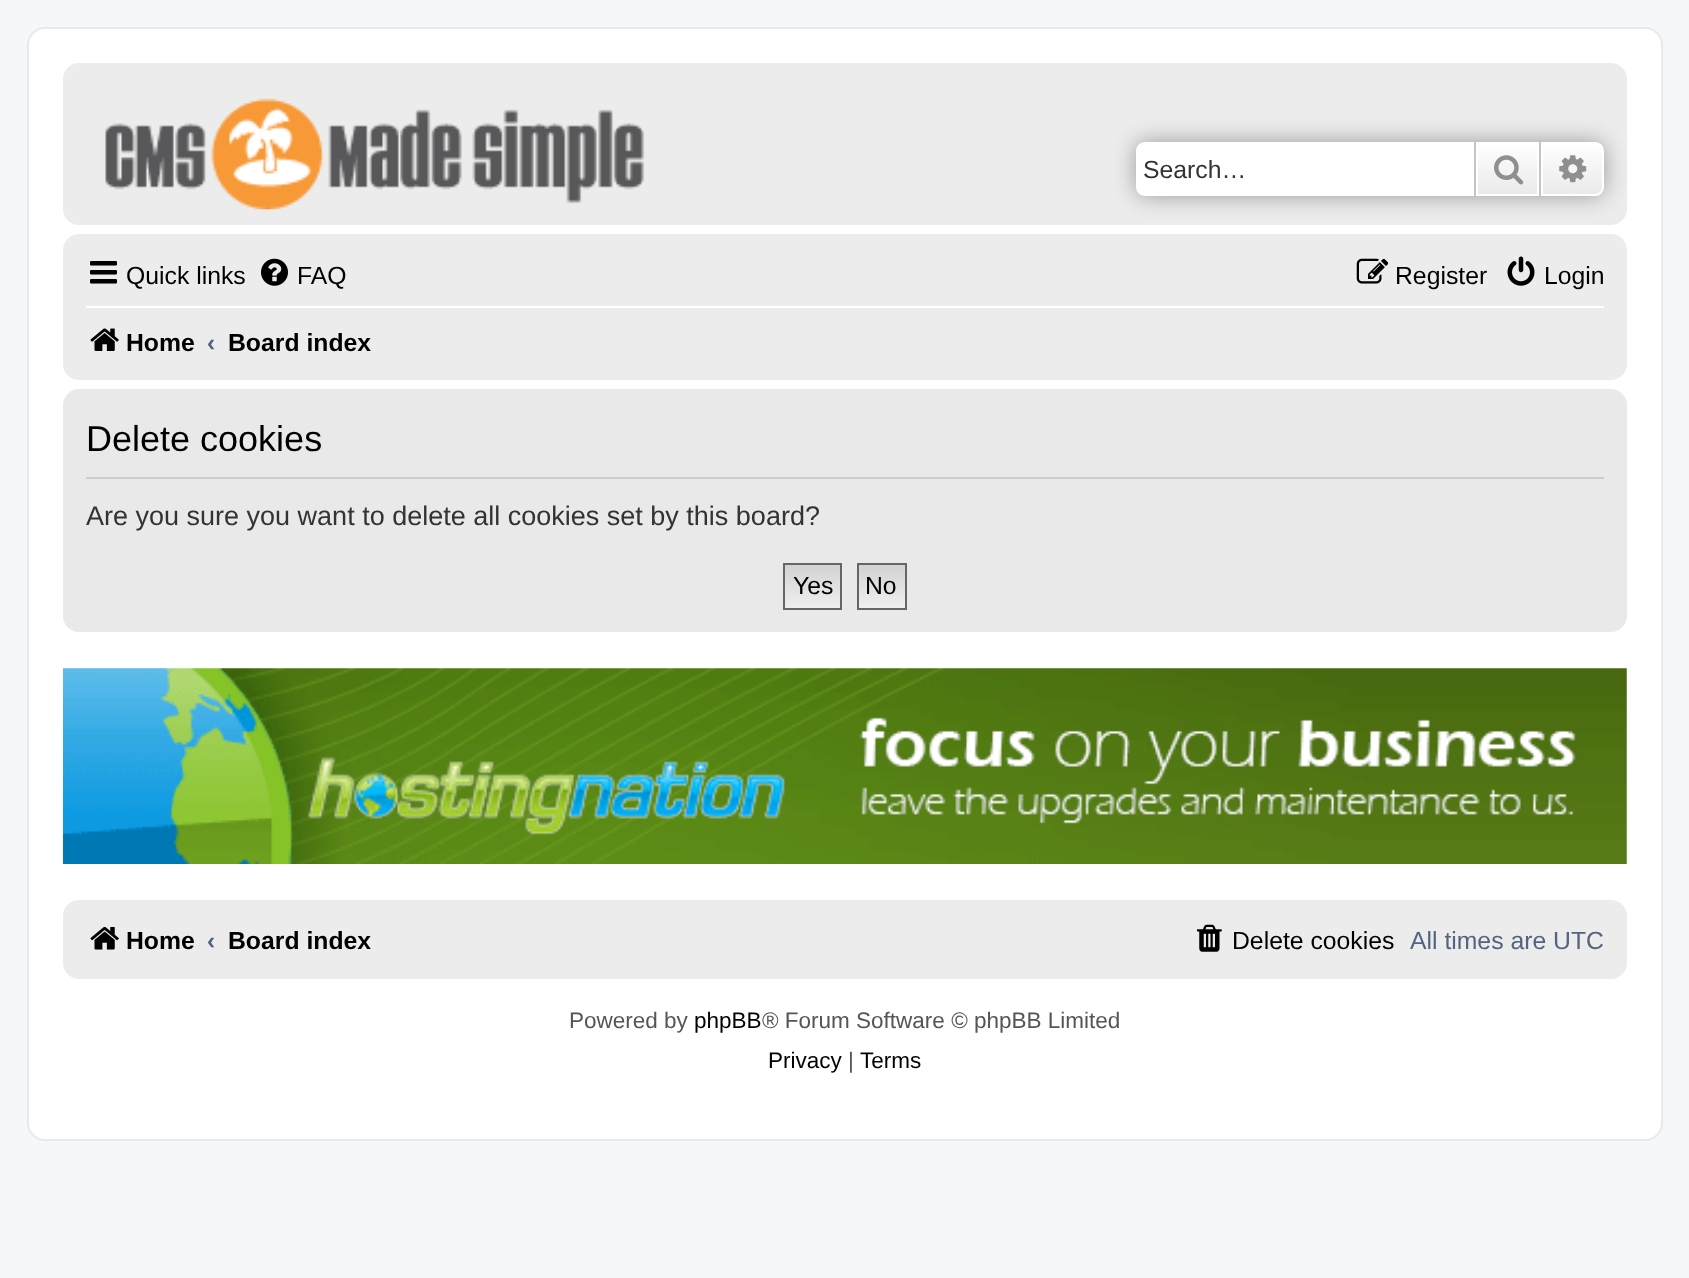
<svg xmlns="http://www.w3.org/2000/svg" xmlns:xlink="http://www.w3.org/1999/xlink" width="1689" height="1278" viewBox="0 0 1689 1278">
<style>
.cls-1{font:24.75px Liberation Sans;fill:#333333}
.cls-2{font:24.75px Liberation Sans;fill:#000000}
.cls-3{font:bold 24.75px Liberation Sans;fill:#000000}
.cls-4{font:bold 24.75px Liberation Sans;fill:#536482}
.cls-5{font:36px Liberation Sans;fill:#000000}
.cls-6{font:27px Liberation Sans;fill:#333333}
.cls-7{font:24.75px Liberation Sans;fill:#536482}
.cls-8{font:22.5px Liberation Sans;fill:#555555}
.cls-9{font:22.5px Liberation Sans;fill:#000000}
</style>
<defs>
<linearGradient id="g1" gradientUnits="userSpaceOnUse" x1="1508" y1="142" x2="1508" y2="196"><stop offset="0" stop-color="#ffffff"/><stop offset="1" stop-color="#e9e9e9"/></linearGradient>
<linearGradient id="g2" gradientUnits="userSpaceOnUse" x1="1573" y1="142" x2="1573" y2="196"><stop offset="0" stop-color="#ffffff"/><stop offset="1" stop-color="#e9e9e9"/></linearGradient>
<linearGradient id="g3" gradientUnits="userSpaceOnUse" x1="812" y1="565" x2="812" y2="608"><stop offset="0" stop-color="#d2d2d2"/><stop offset="1" stop-color="#efefef"/></linearGradient>
<linearGradient id="g4" gradientUnits="userSpaceOnUse" x1="882" y1="565" x2="882" y2="608"><stop offset="0" stop-color="#d2d2d2"/><stop offset="1" stop-color="#efefef"/></linearGradient>
</defs>
<rect width="100%" height="100%" fill="#f5f7fa"/>
<rect fill="#ffffff" stroke="#e6e9ed" stroke-width="2" x="28" y="28" width="1634" height="1112" rx="17"/>
<rect fill="#ececec" x="63" y="63" width="1564" height="162" rx="16"/>
<image xlink:href="image0.png" x="105" y="98" width="540" height="112"/>
<rect fill="#999999" filter="blur(11px)" x="1136" y="142" width="468" height="54" rx="9"/>
<path fill="#ffffff" d="M1145 142H1474V196H1145C1140 196 1136 192 1136 187V151C1136 146 1140 142 1145 142Z"/>
<rect fill="url(#g1)" x="1478" y="144" width="59" height="50"/>
<rect fill="none" stroke="#ffffff" stroke-width="2" x="1477" y="143" width="61" height="52"/>
<rect fill="#c7c3bf" x="1539" y="142" width="2" height="54"/>
<rect fill="#c7c3bf" x="1474" y="142" width="2" height="54"/>
<image xlink:href="image1.png" x="1494" y="155" width="30" height="30"/>
<path fill="url(#g2)" stroke="#ffffff" stroke-width="2" d="M1542 143H1595C1599.5 143 1603 146.5 1603 151V187C1603 191.5 1599.5 195 1595 195H1542Z"/>
<image xlink:href="image2.png" x="1559" y="155" width="28" height="28"/>
<rect fill="#ececec" x="63" y="234" width="1564" height="146" rx="16"/>
<image xlink:href="image3.png" x="90" y="261" width="27" height="23"/>
<image xlink:href="image4.png" x="261" y="258" width="27" height="28"/>
<image xlink:href="image5.png" x="1356" y="258" width="33" height="26"/>
<image xlink:href="image6.png" x="1507" y="256" width="28" height="30"/>
<rect fill="#ffffff" x="86" y="306" width="1518" height="2"/>
<image xlink:href="image7.png" x="90" y="328" width="29" height="23"/>
<rect fill="#e9e9e9" x="63" y="389" width="1564" height="243" rx="16"/>
<rect fill="#cccccc" x="86" y="477" width="1518" height="2"/>
<rect fill="url(#g3)" x="785" y="565" width="55" height="43"/>
<rect fill="none" stroke="#666666" stroke-width="2" x="784" y="564" width="57" height="45"/>
<rect fill="url(#g4)" x="859" y="565" width="46" height="43"/>
<rect fill="none" stroke="#666666" stroke-width="2" x="858" y="564" width="48" height="45"/>
<image xlink:href="image8.png" x="63" y="668" width="1564" height="196"/>
<rect fill="#ececec" x="63" y="900" width="1564" height="79" rx="16"/>
<image xlink:href="image9.png" x="90" y="927" width="29" height="23"/>
<image xlink:href="image10.png" x="1197" y="924" width="25" height="28"/>
<text class="cls-1" x="1143" y="178">Search…</text>
<text class="cls-2" x="126" y="284">Quick links</text>
<text class="cls-2" x="297" y="284">FAQ</text>
<text class="cls-2" x="1395" y="284">Register</text>
<text class="cls-2" x="1544" y="284">Login</text>
<text class="cls-3" x="126" y="351">Home</text>
<text class="cls-4" x="207" y="351">‹</text>
<text class="cls-3" x="228" y="351">Board index</text>
<text class="cls-5" x="86" y="451">Delete cookies</text>
<text class="cls-6" x="86" y="525">Are you sure you want to delete all cookies set by this board?</text>
<text class="cls-2" x="793" y="594">Yes</text>
<text class="cls-2" x="865" y="594">No</text>
<text class="cls-3" x="126" y="949">Home</text>
<text class="cls-4" x="207" y="949">‹</text>
<text class="cls-3" x="228" y="949">Board index</text>
<text class="cls-2" x="1232" y="949">Delete cookies</text>
<text class="cls-7" x="1410" y="949">All times are UTC</text>
<text class="cls-8" x="569" y="1028">Powered by</text>
<text class="cls-9" x="694" y="1028">phpBB</text>
<text class="cls-8" x="762" y="1028">® Forum Software © phpBB Limited</text>
<text class="cls-9" x="768" y="1068">Privacy</text>
<text class="cls-8" x="848" y="1068">|</text>
<text class="cls-9" x="860" y="1068">Terms</text>
</svg>
